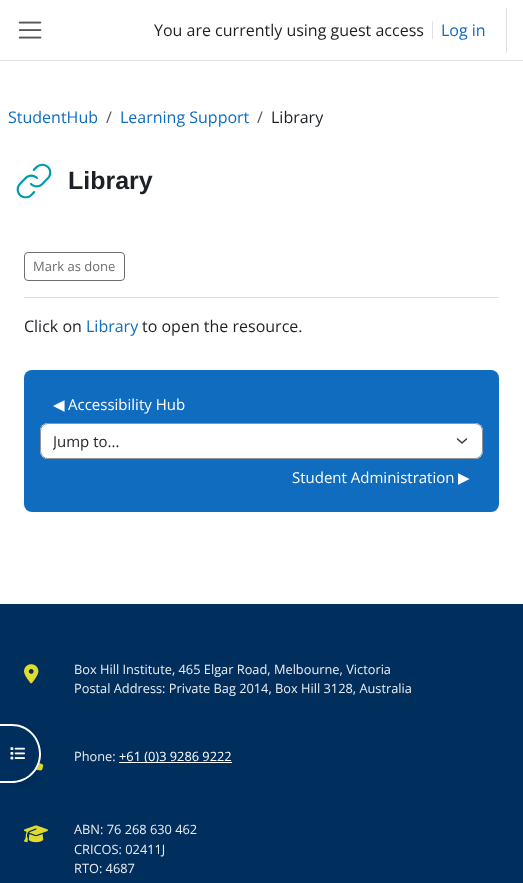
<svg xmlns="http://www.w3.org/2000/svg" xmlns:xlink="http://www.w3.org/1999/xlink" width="523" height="883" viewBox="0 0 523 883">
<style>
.cls-1{font:16px Open Sans;fill:#1d2125}
.cls-2{font:16px Open Sans;fill:#0f6cbf}
.cls-3{font:16px Open Sans;fill:#56595c}
.cls-4{font:bold 25px Liberation Sans;fill:#1d2125}
.cls-5{font:13px Open Sans;fill:#6c6f71}
.cls-6{font:15px DejaVu Sans;fill:#ffffff}
.cls-7{font:15px Open Sans;fill:#ffffff}
.cls-8{font:15px Open Sans;fill:#1d2125}
.cls-9{font:12.8px Open Sans;fill:#e9ecef}
.cls-10{font:12.8px Open Sans;fill:#ffffff}
</style>
<defs>
<clipPath id="clip1"><rect x="53" y="430" width="393" height="22"/></clipPath>
</defs>
<rect width="100%" height="100%" fill="#ffffff"/>
<rect fill="#dee2e6" x="0" y="60" width="523" height="1"/>
<image xlink:href="image0.png" x="18" y="21" width="24" height="18"/>
<rect fill="#dee2e6" x="432" y="21" width="1" height="18"/>
<rect fill="#dee2e6" x="506" y="8" width="1" height="45"/>
<image xlink:href="image1.png" x="16" y="163" width="36" height="36"/>
<rect fill="#dfdfdf" x="24" y="297" width="475" height="1"/>
<rect fill="none" stroke="#6c6f71" x="24.5" y="252.5" width="100" height="28" rx="3.5"/>
<rect fill="#0f6cbf" x="24" y="370" width="475" height="142" rx="8"/>
<rect fill="#ffffff" x="40" y="423" width="443" height="36" rx="8"/>
<path fill="none" stroke="#343a40" stroke-width="1.5" stroke-linecap="round" stroke-linejoin="round" d="M457.5 439L462 443L466.5 439"/>
<rect fill="none" stroke="#8f959e" x="40.5" y="423.5" width="442" height="35" rx="7.5"/>
<rect fill="#002e5d" x="0" y="604" width="523" height="279"/>
<rect fill="#002d5a" x="24" y="730" width="475" height="1"/>
<image xlink:href="image4.png" x="36" y="762" width="8" height="9"/>
<rect fill="#000000" fill-opacity="0.07" filter="blur(2px)" x="0" y="726" width="41" height="59" rx="30"/>
<path fill="#002e5d" d="M0 724H11.5C28 724 41 737 41 753.5C41 770 28 783 11.5 783H0Z"/>
<path fill="#ffffff" fill-rule="evenodd" d="M0 724H12C28 724 41 737 41 754C41 770 28 783 12 783H0ZM0 726H12C27 726 39 738 39 754C39 769 27 781 12 781H0Z"/>
<image xlink:href="image2.png" x="10" y="747" width="15" height="13"/>
<image xlink:href="image3.png" x="24" y="664" width="15" height="20"/>
<rect fill="#ffffff" x="119" y="762" width="113" height="1"/>
<rect fill="#002d5a" x="24" y="803" width="475" height="1"/>
<image xlink:href="image5.png" x="24" y="825" width="24" height="18"/>
<text class="cls-1" x="154" y="36">You are currently using guest access</text>
<text class="cls-2" x="441" y="36">Log in</text>
<text class="cls-2" x="8" y="123">StudentHub</text>
<text class="cls-3" x="106" y="123">/</text>
<text class="cls-2" x="120" y="123">Learning Support</text>
<text class="cls-3" x="257" y="123">/</text>
<text class="cls-1" x="271" y="123">Library</text>
<text class="cls-4" x="68" y="189">Library</text>
<text class="cls-5" x="33" y="271">Mark as done</text>
<text class="cls-1" x="24" y="332">Click on</text>
<text class="cls-2" x="86" y="332">Library</text>
<text class="cls-1" x="142" y="332">to open the resource.</text>
<text class="cls-6" x="53" y="410">◀︎</text>
<text class="cls-7" x="68" y="410">Accessibility Hub</text>
<g clip-path="url(#clip1)">
<text class="cls-8" x="53" y="447">Jump to...</text>
</g>
<text class="cls-7" x="292" y="483">Student Administration</text>
<text class="cls-6" x="458" y="483">▶︎</text>
<text class="cls-9"><tspan x="74" y="674">Box Hill Institute, 465 Elgar Road, Melbourne, Victoria</tspan><tspan x="74" y="693">Postal Address: Private Bag 2014, Box Hill 3128, Australia</tspan></text>
<text class="cls-9" x="74" y="761">Phone:</text>
<text class="cls-10" x="119" y="761">+61 (0)3 9286 9222</text>
<text class="cls-9"><tspan x="74" y="834">ABN: 76 268 630 462</tspan><tspan x="74" y="854">CRICOS: 02411J</tspan><tspan x="74" y="873">RTO: 4687</tspan></text>
</svg>
